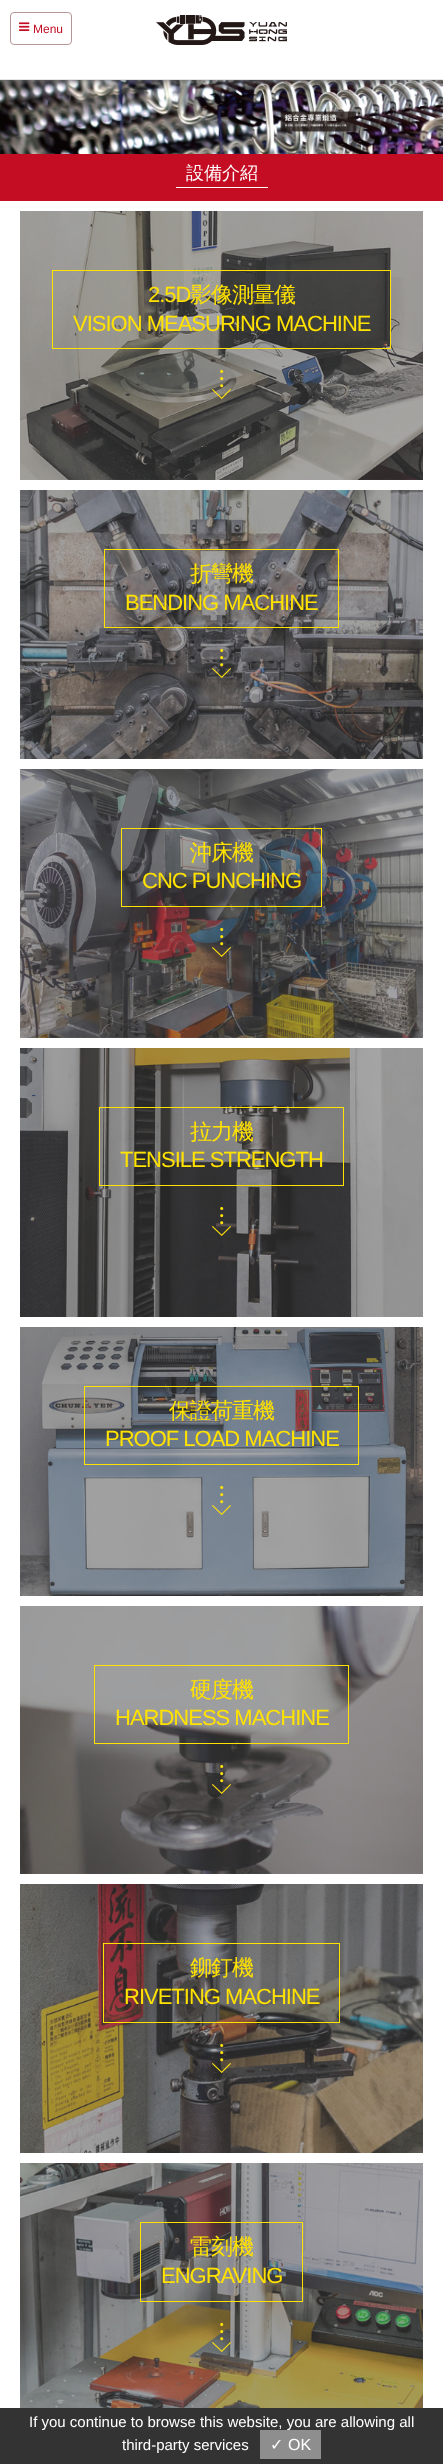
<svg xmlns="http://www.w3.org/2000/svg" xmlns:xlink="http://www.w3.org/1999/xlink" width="443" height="2464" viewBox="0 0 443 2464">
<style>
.cls-1{font:12px Liberation Sans;fill:#c40d23}
.cls-2{font:500 18px WenQuanYi Zen Hei;fill:#ffffff}
.cls-3{font:22px Liberation Sans;letter-spacing:-1px;fill:#ffe200}
.cls-4{font:500 22px WenQuanYi Zen Hei;letter-spacing:-1px;fill:#ffe200}
.cls-5{font:15px Liberation Sans;fill:#ffffff}
.cls-6{font:16px DejaVu Sans;fill:#ffffff}
.cls-7{font:16px Liberation Sans;fill:#ffffff}
</style>
<rect width="100%" height="100%" fill="#ffffff"/>
<image xlink:href="image2.png" x="0" y="80" width="443" height="74"/>
<rect fill="#666666" filter="blur(3px)" x="0" y="1" width="443" height="80"/>
<rect fill="#ffffff" x="0" y="0" width="443" height="79"/>
<rect fill="#e6e6e6" x="0" y="79" width="443" height="1"/>
<rect fill="none" stroke="#b69797" x="10.5" y="12.5" width="61" height="32" rx="3.5"/>
<image xlink:href="image0.png" x="19" y="22" width="11" height="9"/>
<image xlink:href="image1.png" x="156" y="15" width="131" height="30"/>
<rect fill="#c40d23" x="0" y="154" width="443" height="47"/>
<rect fill="#ffffff" x="176" y="187" width="92" height="1"/>
<rect fill="#4d4d4d" x="20" y="211" width="403" height="269"/>
<image xlink:href="image3.png" x="20" y="211" width="403" height="269"/>
<rect fill="none" stroke="#ffe200" x="52.5" y="270.5" width="338" height="78"/>
<image xlink:href="image4.png" x="212" y="370" width="19" height="29"/>
<rect fill="#4d4d4d" x="20" y="490" width="403" height="269"/>
<image xlink:href="image5.png" x="20" y="490" width="403" height="269"/>
<rect fill="none" stroke="#ffe200" x="104.5" y="549.5" width="234" height="78"/>
<image xlink:href="image6.png" x="212" y="649" width="19" height="29"/>
<rect fill="#4d4d4d" x="20" y="769" width="403" height="269"/>
<image xlink:href="image7.png" x="20" y="769" width="403" height="269"/>
<rect fill="none" stroke="#ffe200" x="121.5" y="828.5" width="200" height="78"/>
<image xlink:href="image8.png" x="212" y="928" width="19" height="29"/>
<rect fill="#4d4d4d" x="20" y="1048" width="403" height="269"/>
<image xlink:href="image9.png" x="20" y="1048" width="403" height="269"/>
<rect fill="none" stroke="#ffe200" x="99.5" y="1107.5" width="244" height="78"/>
<image xlink:href="image10.png" x="212" y="1207" width="19" height="29"/>
<rect fill="#4d4d4d" x="20" y="1327" width="403" height="269"/>
<image xlink:href="image11.png" x="20" y="1327" width="403" height="269"/>
<rect fill="none" stroke="#ffe200" x="84.5" y="1386.5" width="274" height="78"/>
<image xlink:href="image12.png" x="212" y="1486" width="19" height="29"/>
<rect fill="#4d4d4d" x="20" y="1606" width="403" height="268"/>
<image xlink:href="image13.png" x="20" y="1606" width="403" height="268"/>
<rect fill="none" stroke="#ffe200" x="94.5" y="1665.5" width="254" height="78"/>
<image xlink:href="image14.png" x="212" y="1765" width="19" height="29"/>
<rect fill="#4d4d4d" x="20" y="1884" width="403" height="269"/>
<image xlink:href="image15.png" x="20" y="1884" width="403" height="269"/>
<rect fill="none" stroke="#ffe200" x="103.5" y="1943.5" width="236" height="79"/>
<image xlink:href="image16.png" x="212" y="2044" width="19" height="29"/>
<rect fill="#4d4d4d" x="20" y="2163" width="403" height="245"/>
<image xlink:href="image17.png" x="20" y="2163" width="403" height="245"/>
<rect fill="none" stroke="#ffe200" x="140.5" y="2222.5" width="162" height="79"/>
<image xlink:href="image18.png" x="212" y="2323" width="19" height="29"/>
<rect fill="#333333" x="0" y="2408" width="443" height="56"/>
<text class="cls-1" x="33" y="33">Menu</text>
<text class="cls-2" x="186" y="179">設備介紹</text>
<text class="cls-3" x="148" y="302">2.5D</text>
<text class="cls-4" x="190" y="302">影像測量儀</text>
<text class="cls-3" x="73" y="331">VISION MEASURING MACHINE</text>
<text class="cls-4" x="190" y="581">折彎機</text>
<text class="cls-3" x="125" y="610">BENDING MACHINE</text>
<text class="cls-4" x="190" y="860">沖床機</text>
<text class="cls-3" x="142" y="888">CNC PUNCHING</text>
<text class="cls-4" x="190" y="1139">拉力機</text>
<text class="cls-3" x="120" y="1167">TENSILE STRENGTH</text>
<text class="cls-4" x="169" y="1418">保證荷重機</text>
<text class="cls-3" x="105" y="1446">PROOF LOAD MACHINE</text>
<text class="cls-4" x="190" y="1697">硬度機</text>
<text class="cls-3" x="115" y="1725">HARDNESS MACHINE</text>
<text class="cls-4" x="190" y="1975">鉚釘機</text>
<text class="cls-3" x="124" y="2004">RIVETING MACHINE</text>
<text class="cls-4" x="190" y="2254">雷刻機</text>
<text class="cls-3" x="161" y="2283">ENGRAVING</text>
<text class="cls-5" x="29" y="2427">If you continue to browse this website, you are allowing all</text>
<text class="cls-5" x="122" y="2450">third-party services</text>
<rect fill="#a09f9f" fill-opacity="0.85" x="260" y="2430" width="61" height="29"/>
<text class="cls-6" x="270" y="2450">✓</text>
<text class="cls-7" x="288" y="2450">OK</text>
</svg>
